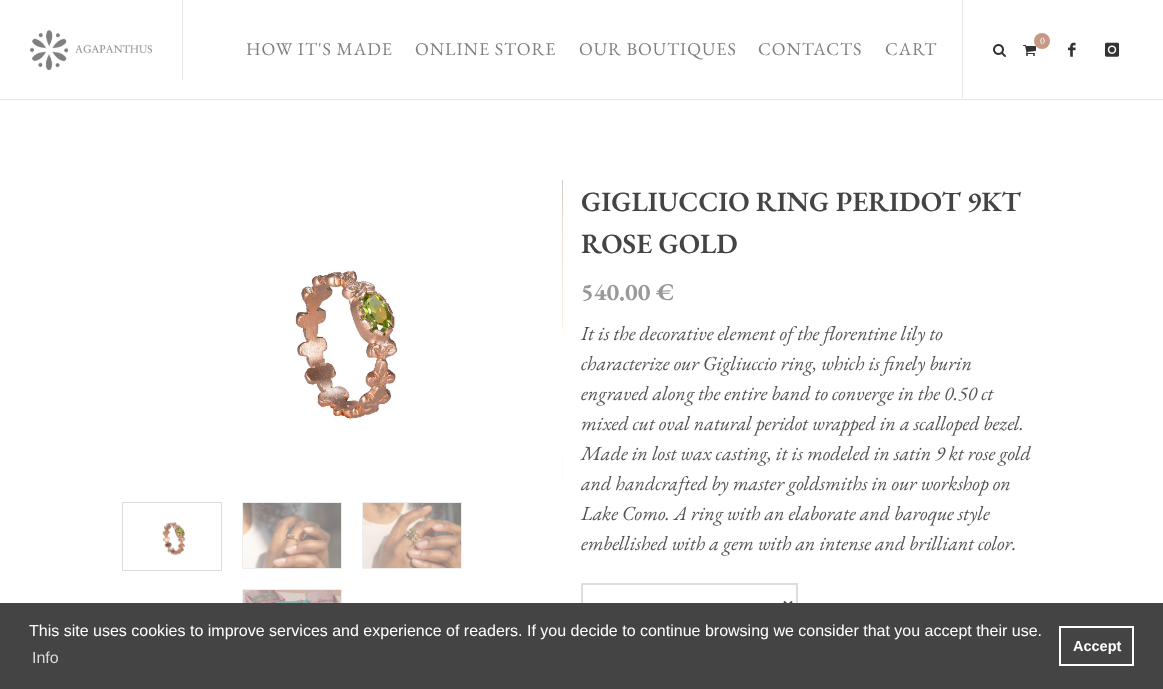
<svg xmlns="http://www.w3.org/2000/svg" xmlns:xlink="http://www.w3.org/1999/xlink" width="1163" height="689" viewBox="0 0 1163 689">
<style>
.cls-1{font:10px EB Garamond;fill:#ffffff}
.cls-2{font:18px EB Garamond;letter-spacing:1px;fill:#7f7f7f}
.cls-3{font:600 28px EB Garamond;fill:#444444}
.cls-4{font:bold 24px EB Garamond;fill:#999999}
.cls-5{font:italic 20px EB Garamond;fill:#555555}
.cls-6{font:16px Liberation Sans;fill:#ffffff}
.cls-7{font:16px Liberation Sans;fill:#dadada}
.cls-8{font:bold 14.5px Liberation Sans;fill:#ffffff}
</style>
<rect width="100%" height="100%" fill="#ffffff"/>
<rect fill="#e6e6e6" x="0" y="99" width="1163" height="1"/>
<rect fill="#e6e6e6" x="182" y="0" width="1" height="80"/>
<image xlink:href="image0.png" x="30" y="30" width="123" height="41"/>
<image xlink:href="image1.png" x="1023" y="45" width="13" height="11"/>
<circle fill="#c59984" cx="1042" cy="41" r="8"/>
<rect fill="#e6e6e6" x="962" y="0" width="1" height="98"/>
<image xlink:href="image2.png" x="993" y="44" width="13" height="13"/>
<image xlink:href="image3.png" x="1068" y="42" width="8" height="15"/>
<image xlink:href="image4.png" x="1105" y="42" width="14" height="15"/>
<image xlink:href="image5.png" x="294" y="270" width="107" height="150"/>
<image xlink:href="image6.png" x="562" y="180" width="1" height="301"/>
<rect fill="none" stroke="#dddddd" x="122.5" y="502.5" width="99" height="68"/>
<image xlink:href="image7.png" x="162" y="522" width="24" height="34"/>
<rect fill="none" stroke="#eeeeee" x="242.5" y="502.5" width="99" height="66"/>
<image xlink:href="image8.png" x="243" y="503" width="98" height="65"/>
<rect fill="none" stroke="#eeeeee" x="362.5" y="502.5" width="99" height="66"/>
<image xlink:href="image9.png" x="363" y="503" width="98" height="65"/>
<rect fill="none" stroke="#eeeeee" x="242.5" y="589.5" width="99" height="63"/>
<image xlink:href="image10.png" x="243" y="590" width="98" height="13"/>
<rect fill="none" stroke="#dddddd" stroke-width="2" x="582" y="584" width="215" height="39"/>
<path fill="none" stroke="#555555" stroke-width="2" d="M784 601.5L788 605.5L792 601.5"/>
<rect fill="#444444" x="0" y="603" width="1163" height="86"/>
<rect fill="none" stroke="#ffffff" stroke-width="2" x="1060" y="627" width="73" height="38"/>
<text class="cls-1" x="1040" y="44">0</text>
<text class="cls-2" x="246" y="55">HOW IT'S MADE</text>
<text class="cls-2" x="415" y="55">ONLINE STORE</text>
<text class="cls-2" x="579" y="55">OUR BOUTIQUES</text>
<text class="cls-2" x="758" y="55">CONTACTS</text>
<text class="cls-2" x="885" y="55">CART</text>
<text class="cls-3"><tspan x="581" y="211">GIGLIUCCIO RING PERIDOT 9KT</tspan><tspan x="581" y="253">ROSE GOLD</tspan></text>
<text class="cls-4" x="581" y="300">540.00 €</text>
<text class="cls-5"><tspan x="581" y="340">It is the decorative element of the florentine lily to</tspan><tspan x="581" y="370">characterize our Gigliuccio ring, which is finely burin</tspan><tspan x="581" y="400">engraved along the entire band to converge in the 0.50 ct</tspan><tspan x="581" y="430">mixed cut oval natural peridot wrapped in a scalloped bezel.</tspan><tspan x="581" y="460">Made in lost wax casting, it is modeled in satin 9 kt rose gold</tspan><tspan x="581" y="490">and handcrafted by master goldsmiths in our workshop on</tspan><tspan x="581" y="520">Lake Como. A ring with an elaborate and baroque style</tspan><tspan x="581" y="550">embellished with a gem with an intense and brilliant color.</tspan></text>
<text class="cls-6" x="29" y="636">This site uses cookies to improve services and experience of readers. If you decide to continue browsing we consider that you accept their use.</text>
<text class="cls-7" x="32" y="663">Info</text>
<text class="cls-8" x="1073" y="651">Accept</text>
</svg>
